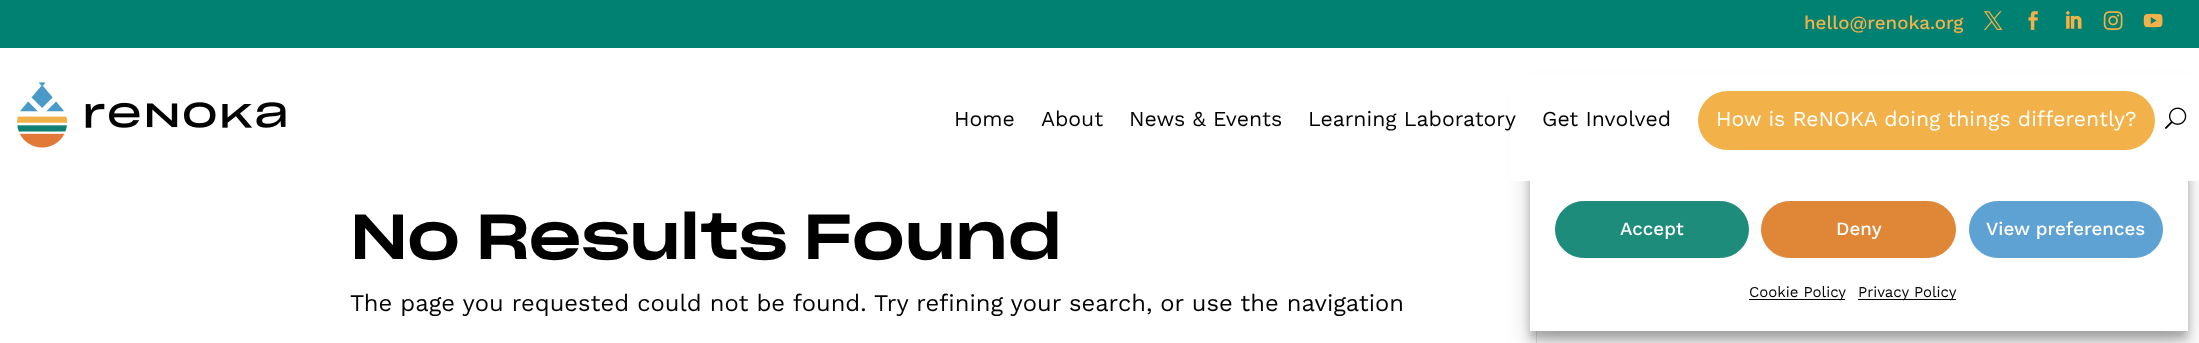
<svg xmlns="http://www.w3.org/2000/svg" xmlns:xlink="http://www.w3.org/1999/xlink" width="2199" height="343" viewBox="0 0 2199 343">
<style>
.cls-1{font:500 18.75px Work Sans;fill:#f2b149}
.cls-2{font:21.25px Work Sans;fill:#000000}
.cls-3{font:21.25px Work Sans;fill:#ffffff}
.cls-4{font:500 62.5px 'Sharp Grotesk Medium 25';fill:#000000}
.cls-5{font:23.75px Work Sans;fill:#000000}
.cls-6{font:500 18.75px Work Sans;fill:#ffffff}
.cls-7{font:15px Work Sans;fill:#000000}
</style>
<rect width="100%" height="100%" fill="#ffffff"/>
<rect fill="#008171" x="0" y="0" width="2199" height="48"/>
<image xlink:href="image0.png" x="1983" y="11" width="20" height="19"/>
<image xlink:href="image1.png" x="2028" y="11" width="10" height="19"/>
<image xlink:href="image2.png" x="2066" y="11" width="16" height="18"/>
<image xlink:href="image3.png" x="2103" y="11" width="20" height="19"/>
<image xlink:href="image4.png" x="2143" y="13" width="20" height="15"/>
<rect fill="#e2e2e2" x="1536" y="331" width="1" height="12"/>
<rect fill="#000000" fill-opacity="0.23" filter="blur(4px)" x="1530" y="89" width="658" height="250"/>
<rect fill="#000000" fill-opacity="0.19" filter="blur(12.5px)" x="1530" y="94" width="658" height="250"/>
<rect fill="#ffffff" x="1510" y="74" width="689" height="107"/>
<image xlink:href="image5.png" x="17" y="82" width="269" height="66"/>
<rect fill="#f2b149" x="1698" y="91" width="457" height="59" rx="29.5"/>
<image xlink:href="image6.png" x="2165" y="107" width="22" height="22"/>
<rect fill="#ffffff" x="1530" y="181" width="658" height="150"/>
<rect fill="#1d8c7b" stroke="#1d8c7b" x="1555.5" y="201.5" width="193" height="56" rx="28"/>
<rect fill="#df8637" stroke="#df8637" x="1761.5" y="201.5" width="194" height="56" rx="28"/>
<rect fill="#5ea2d3" stroke="#5ea2d3" x="1969.5" y="201.5" width="193" height="56" rx="28"/>
<rect fill="#000000" x="1749" y="299" width="96" height="1"/>
<rect fill="#000000" x="1858" y="299" width="98" height="1"/>
<text class="cls-1" x="1804" y="29">hello@renoka.org</text>
<text class="cls-2" x="954" y="126">Home</text>
<text class="cls-2" x="1041" y="126">About</text>
<text class="cls-2" x="1129" y="126">News &amp; Events</text>
<text class="cls-2" x="1308" y="126">Learning Laboratory</text>
<text class="cls-2" x="1542" y="126">Get Involved</text>
<text class="cls-3" x="1716" y="126">How is ReNOKA doing things differently?</text>
<text class="cls-4" x="350" y="259">No Results Found</text>
<text class="cls-5" x="350" y="311">The page you requested could not be found. Try refining your search, or use the navigation</text>
<text class="cls-6" x="1620" y="235">Accept</text>
<text class="cls-6" x="1836" y="235">Deny</text>
<text class="cls-6" x="1986" y="235">View preferences</text>
<text class="cls-7" x="1749" y="297">Cookie Policy</text>
<text class="cls-7" x="1858" y="297">Privacy Policy</text>
</svg>
